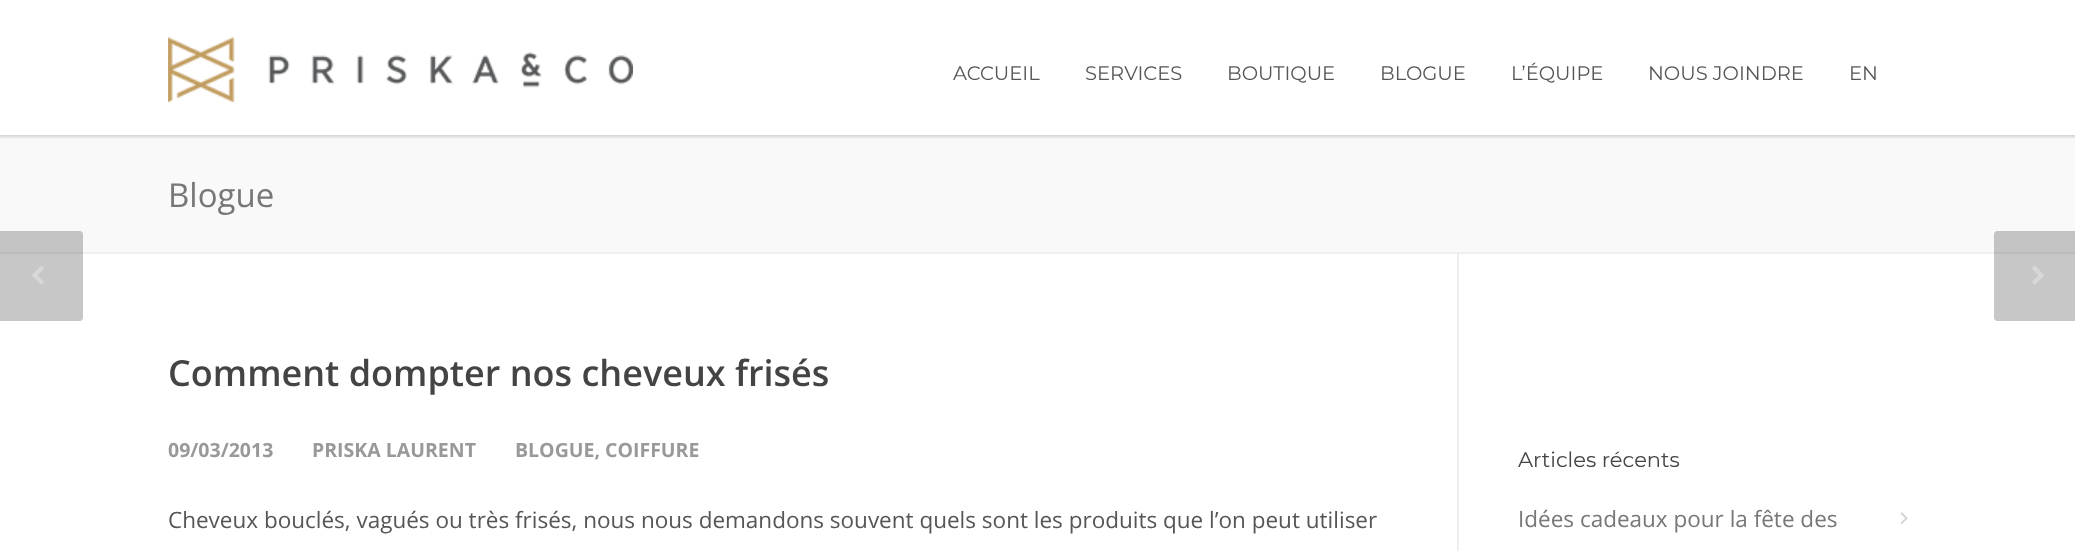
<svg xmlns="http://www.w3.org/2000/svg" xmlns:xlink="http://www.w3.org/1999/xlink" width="2075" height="551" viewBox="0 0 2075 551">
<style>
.cls-1{font:19.5px Montserrat;fill:#565656}
.cls-2{font:33px Open Sans;fill:#777777}
.cls-3{font:600 36px Open Sans;fill:#444444}
.cls-4{font:bold 19.5px Open Sans;fill:#999999}
.cls-5{font:22.5px Open Sans;fill:#565656}
.cls-6{font:21px Montserrat;fill:#444444}
.cls-7{font:22.5px Open Sans;fill:#777777}
</style>
<defs>
<clipPath id="clip1"><rect x="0" y="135" width="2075" height="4"/></clipPath>
</defs>
<rect width="100%" height="100%" fill="#ffffff"/>
<rect fill="#f9f9f9" x="0" y="135" width="2075" height="117"/>
<g clip-path="url(#clip1)">
<rect fill="#000000" fill-opacity="0.16" filter="blur(1.5px)" x="-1" y="-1" width="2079" height="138"/>
</g>
<image xlink:href="image0.png" x="168" y="37" width="465" height="65"/>
<rect fill="#efefef" x="0" y="252" width="2075" height="2"/>
<rect fill="#efefef" x="1457" y="254" width="2" height="297"/>
<path fill="#444444" fill-opacity="0.3" d="M-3 231H80C81.5 231 83 232.5 83 234V318C83 319.5 81.5 321 80 321H-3Z"/>
<image xlink:href="image1.png" x="32" y="266" width="12" height="19"/>
<path fill="#444444" fill-opacity="0.3" d="M1997 231H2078V321H1997C1995.5 321 1994 319.5 1994 318V234C1994 232.5 1995.5 231 1997 231Z"/>
<image xlink:href="image2.png" x="2032" y="266" width="12" height="19"/>
<image xlink:href="image3.png" x="1900" y="512" width="8" height="12"/>
<text class="cls-1" x="953" y="80">ACCUEIL</text>
<text class="cls-1" x="1085" y="80">SERVICES</text>
<text class="cls-1" x="1227" y="80">BOUTIQUE</text>
<text class="cls-1" x="1380" y="80">BLOGUE</text>
<text class="cls-1" x="1511" y="80">L’ÉQUIPE</text>
<text class="cls-1" x="1648" y="80">NOUS JOINDRE</text>
<text class="cls-1" x="1849" y="80">EN</text>
<text class="cls-2" x="168" y="207">Blogue</text>
<text class="cls-3" x="168" y="386">Comment dompter nos cheveux frisés</text>
<text class="cls-4" x="168" y="457">09/03/2013</text>
<text class="cls-4" x="312" y="457">PRISKA LAURENT</text>
<text class="cls-4" x="515" y="457">BLOGUE, COIFFURE</text>
<text class="cls-5" x="168" y="528">Cheveux bouclés, vagués ou très frisés, nous nous demandons souvent quels sont les produits que l’on peut utiliser</text>
<text class="cls-6" x="1518" y="467">Articles récents</text>
<text class="cls-7" x="1518" y="527">Idées cadeaux pour la fête des</text>
</svg>
